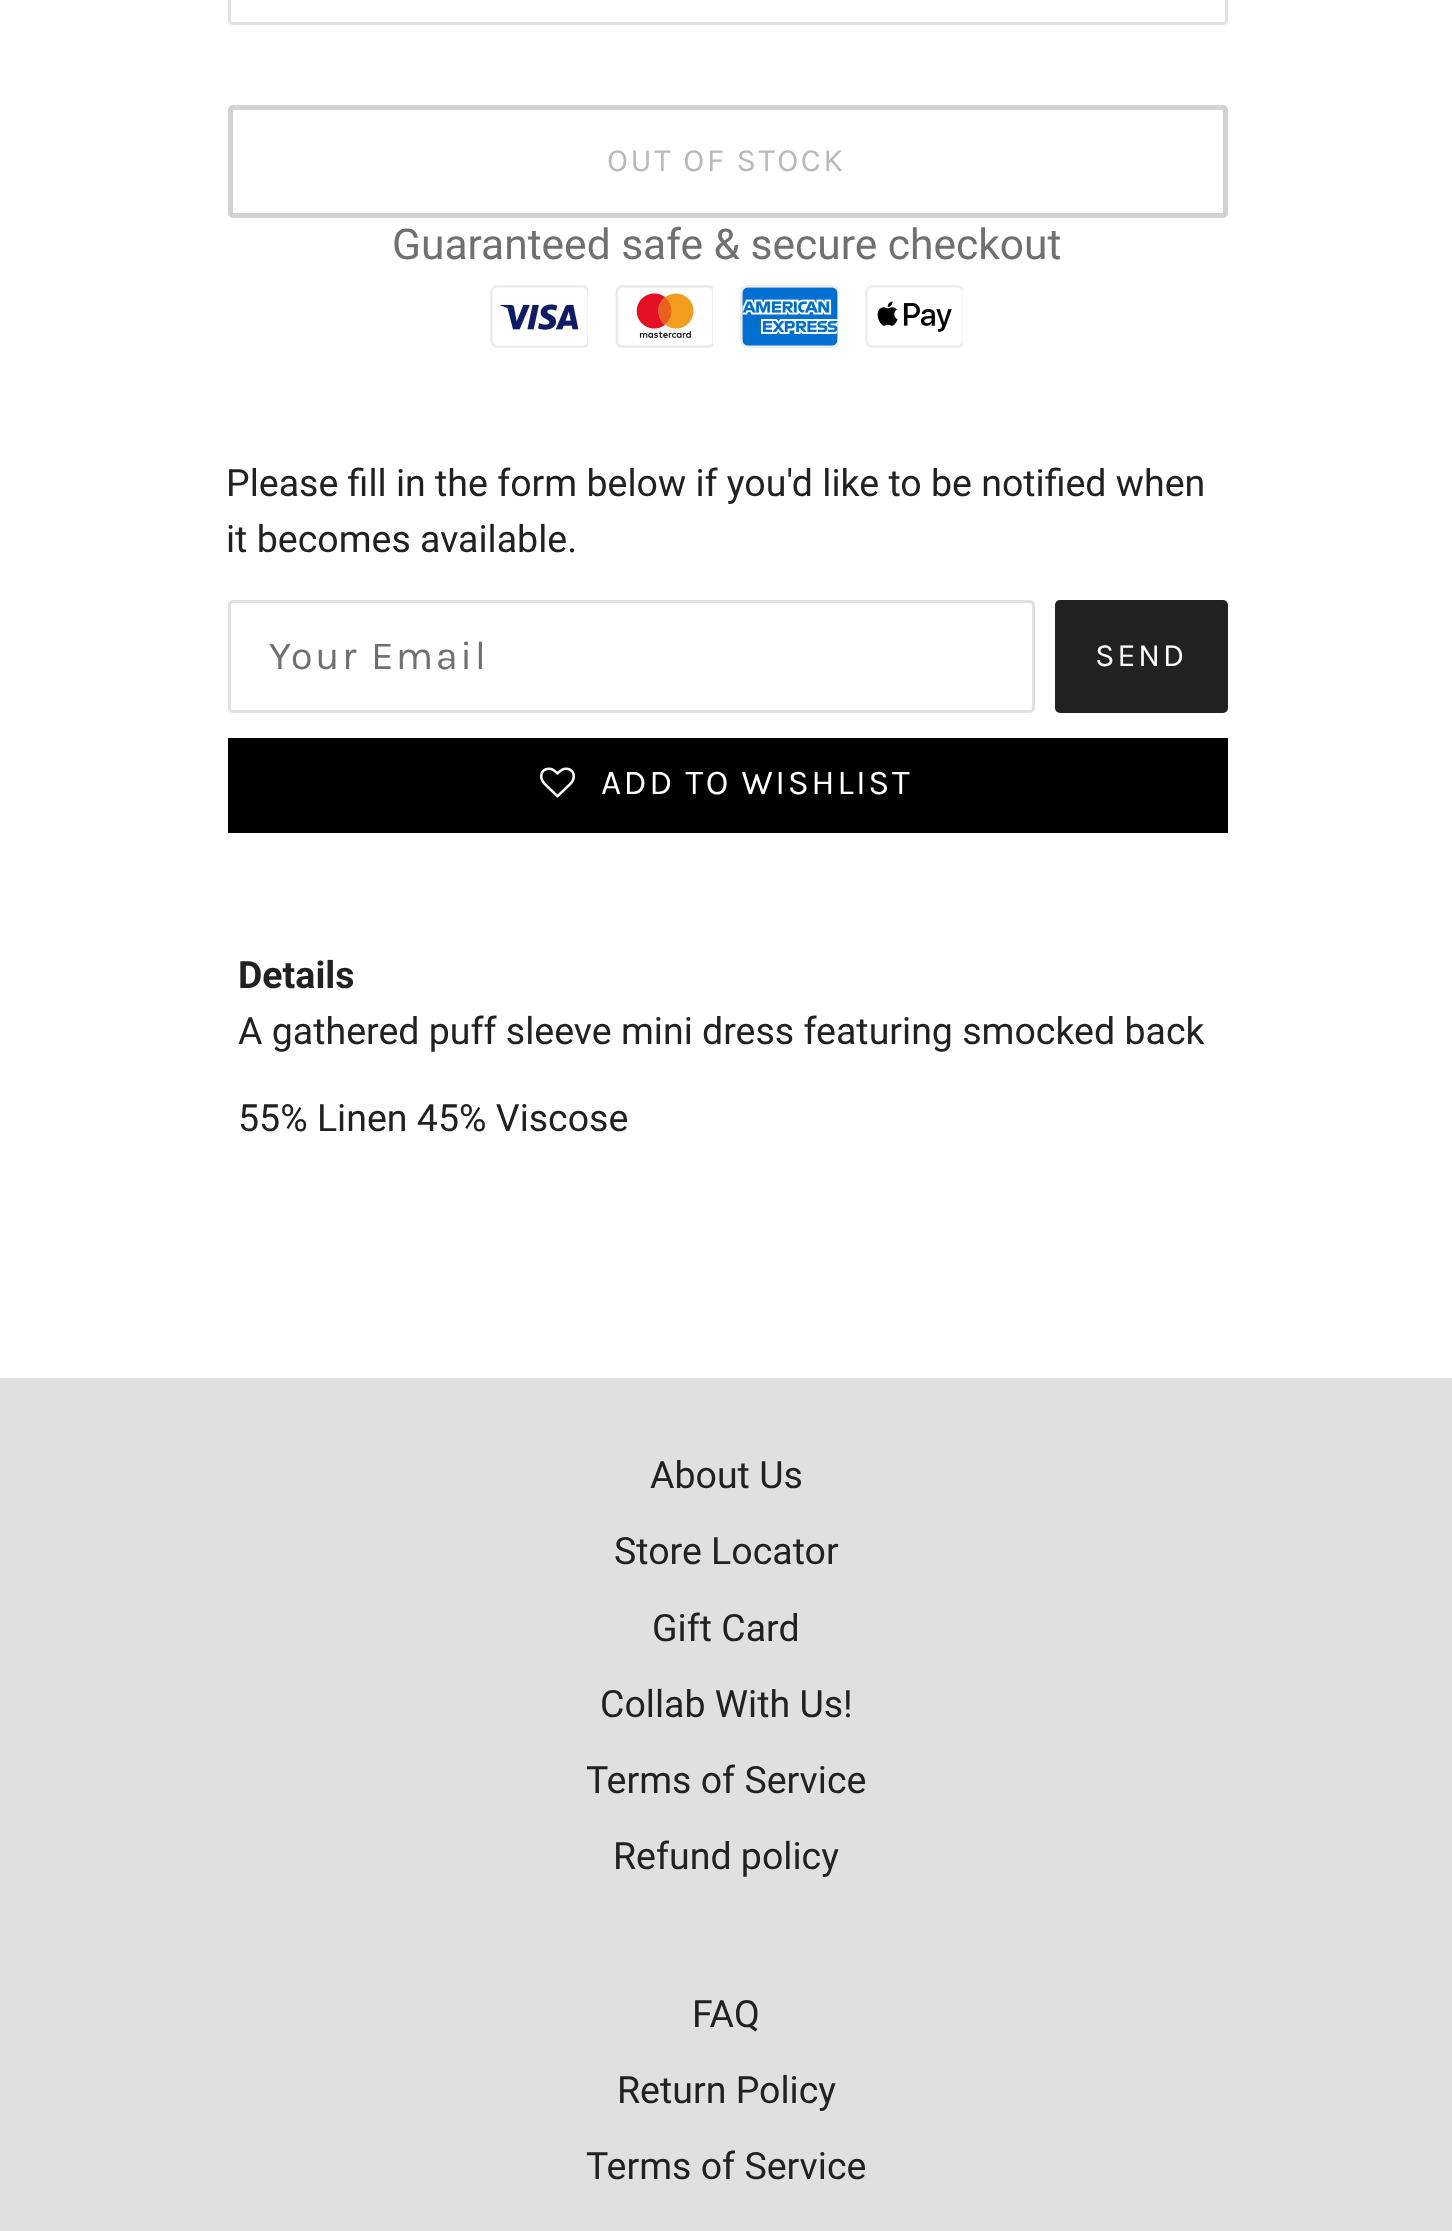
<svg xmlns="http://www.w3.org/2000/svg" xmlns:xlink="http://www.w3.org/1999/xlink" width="1452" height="2231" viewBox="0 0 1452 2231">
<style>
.cls-1{font:32.5px Karla;letter-spacing:2.5px;fill:#b9b9b9}
.cls-2{font:42.5px Roboto;fill:#707070}
.cls-3{font:37.5px Roboto;fill:#212121}
.cls-4{font:40px Karla;letter-spacing:2.5px;fill:#707070}
.cls-5{font:32.5px Karla;letter-spacing:2.5px;fill:#ffffff}
.cls-6{font:35px Karla;letter-spacing:2.5px;fill:#ffffff}
.cls-7{font:bold 37.5px Roboto;fill:#212121}
</style>
<rect width="100%" height="100%" fill="#ffffff"/>
<rect fill="none" stroke="#e0e0e0" stroke-width="3" x="229.5" y="-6.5" width="997" height="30" rx="3.5"/>
<rect fill="none" stroke="#d2d2d2" stroke-width="5" x="230.5" y="107.5" width="995" height="108" rx="2.5"/>
<image xlink:href="image0.png" x="490" y="285" width="98" height="63"/>
<image xlink:href="image1.png" x="615" y="285" width="98" height="63"/>
<image xlink:href="image2.png" x="740" y="285" width="98" height="63"/>
<image xlink:href="image3.png" x="865" y="285" width="98" height="63"/>
<rect fill="none" stroke="#e0e0e0" stroke-width="3" x="229.5" y="601.5" width="804" height="110" rx="3.5"/>
<rect fill="#212121" x="1055" y="600" width="173" height="113" rx="5"/>
<rect fill="#000000" x="228" y="738" width="1000" height="95"/>
<image xlink:href="image4.png" x="540" y="767" width="35" height="31"/>
<rect fill="#e0e0e0" x="0" y="1378" width="1452" height="853"/>
<text class="cls-1" x="607" y="171">OUT OF STOCK</text>
<text class="cls-2" x="392" y="259">Guaranteed safe &amp; secure checkout</text>
<text class="cls-3"><tspan x="226" y="496">Please fill in the form below if you'd like to be notified when</tspan><tspan x="226" y="552">it becomes available.</tspan></text>
<text class="cls-4" x="269" y="669">Your Email</text>
<text class="cls-5" x="1095" y="666">SEND</text>
<text class="cls-6" x="601" y="794">ADD TO WISHLIST</text>
<text class="cls-7" x="238" y="988">Details</text>
<text class="cls-3" x="238" y="1044">A gathered puff sleeve mini dress featuring smocked back</text>
<text class="cls-3" x="238" y="1131">55% Linen 45% Viscose</text>
<text class="cls-3" x="650" y="1488">About Us</text>
<text class="cls-3" x="614" y="1564">Store Locator</text>
<text class="cls-3" x="652" y="1641">Gift Card</text>
<text class="cls-3" x="600" y="1717">Collab With Us!</text>
<text class="cls-3" x="586" y="1793">Terms of Service</text>
<text class="cls-3" x="613" y="1869">Refund policy</text>
<text class="cls-3" x="692" y="2027">FAQ</text>
<text class="cls-3" x="617" y="2103">Return Policy</text>
<text class="cls-3" x="586" y="2179">Terms of Service</text>
</svg>
